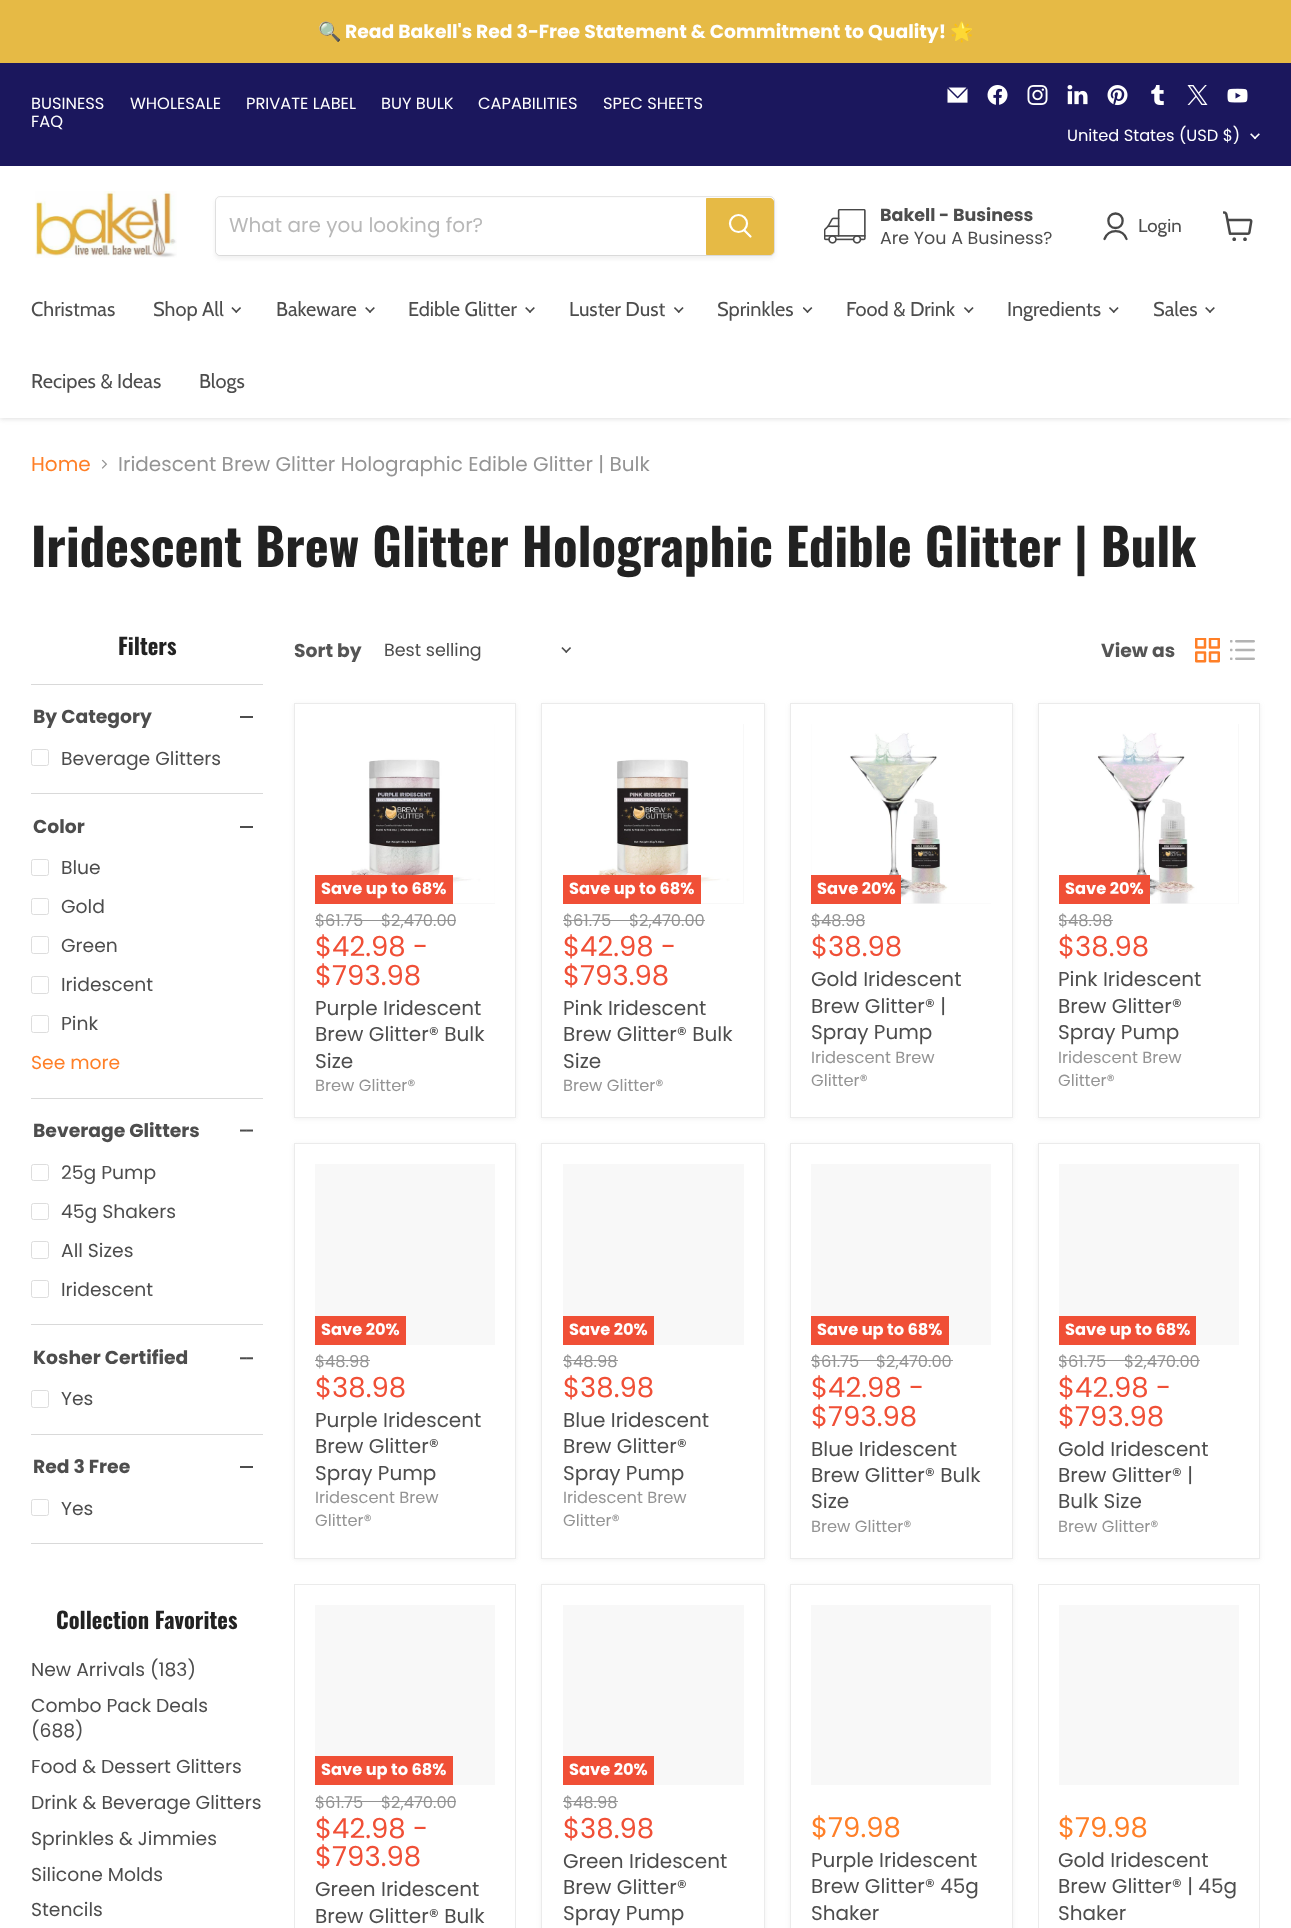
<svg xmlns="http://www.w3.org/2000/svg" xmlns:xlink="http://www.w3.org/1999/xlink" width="1291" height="1928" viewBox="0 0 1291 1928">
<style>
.cls-1{font:bold 18.75px Noto Color Emoji;fill:#ffffff}
.cls-2{font:bold 18.75px Poppins;fill:#ffffff}
.cls-3{font:16.25px Poppins;fill:#ffffff}
.cls-4{font:20px Poppins;fill:#b8b8b8}
.cls-5{font:bold 17.5px Poppins;fill:#4d4d4d}
.cls-6{font:17.5px Poppins;fill:#4d4d4d}
.cls-7{font:18.75px Cabin;fill:#4d4d4d}
.cls-8{font:20px Cabin;fill:#4d4d4d}
.cls-9{font:20px Poppins;fill:#ff7f27}
.cls-10{font:20px Poppins;fill:#949494}
.cls-11{font:bold 51px Oswald;fill:#222222}
.cls-12{font:bold 22.5px Oswald;fill:#222222}
.cls-13{font:bold 18.75px Poppins;fill:#4d4d4d}
.cls-14{font:18.75px Poppins;fill:#4d4d4d}
.cls-15{font:18.75px Poppins;fill:#ff7f27}
.cls-16{font:bold 18.75px Poppins;fill:#555555}
.cls-17{font:bold 16.25px Poppins;fill:#ffffff}
.cls-18{font:16.25px Poppins;fill:#949494}
.cls-19{font:27.5px Poppins;fill:#f04f36}
.cls-20{font:20px Poppins;fill:#4d4d4d}
.cls-21{font:27.5px Poppins;fill:#ff7f27}
</style>
<rect width="100%" height="100%" fill="#ffffff"/>
<rect fill="#e6ba45" x="0" y="0" width="1291" height="63"/>
<rect fill="#808080" fill-opacity="0.25" filter="blur(2.5px)" x="0" y="168" width="1291" height="251"/>
<rect fill="#1b175d" x="0" y="63" width="1291" height="103"/>
<image xlink:href="image0.png" x="947" y="87" width="21" height="16"/>
<image xlink:href="image1.png" x="987" y="85" width="21" height="20"/>
<image xlink:href="image2.png" x="1027" y="85" width="21" height="20"/>
<image xlink:href="image3.png" x="1067" y="85" width="21" height="20"/>
<image xlink:href="image4.png" x="1107" y="85" width="21" height="21"/>
<image xlink:href="image5.png" x="1151" y="85" width="13" height="20"/>
<image xlink:href="image6.png" x="1187" y="85" width="21" height="20"/>
<image xlink:href="image7.png" x="1227" y="88" width="21" height="15"/>
<image xlink:href="image8.png" x="1250" y="133" width="10" height="7"/>
<rect fill="#ffffff" x="0" y="166" width="1291" height="252"/>
<image xlink:href="image9.png" x="35" y="191" width="142" height="67"/>
<rect fill="#808080" fill-opacity="0.11" filter="blur(2px)" x="215" y="199" width="560" height="60" rx="5"/>
<rect fill="none" stroke="#808080" stroke-opacity="0.2" x="215.5" y="196.5" width="559" height="59" rx="4.5"/>
<path fill="#ffffff" d="M220 198H706V255H220C218 255 216 253 216 251V202C216 200 218 198 220 198Z"/>
<path fill="#e6ba45" stroke="#e6ba45" d="M706.5 198.5H770C772 198.5 773.5 200 773.5 202V251C773.5 253 772 254.5 770 254.5H706.5Z"/>
<path fill="none" stroke="#ffffff" stroke-width="2.2" stroke-linecap="round" d="M750.5 236.5L744.5 230.5"/>
<circle fill="none" stroke="#ffffff" stroke-width="2.2" cx="738.5" cy="223.5" r="8.5"/>
<image xlink:href="image10.png" x="824" y="209" width="42" height="35"/>
<path fill="none" stroke="#484848" stroke-width="2.3" stroke-linecap="round" stroke-linejoin="round" d="M1115.5 228C1125 228 1125 213.5 1115.5 213.5C1106 213.5 1106 228 1115.5 228ZM1126.5 239C1123 228.5 1108.5 228.5 1104.5 239"/>
<image xlink:href="image11.png" x="1223" y="211" width="30" height="30"/>
<image xlink:href="image12.png" x="231" y="307" width="10" height="6"/>
<image xlink:href="image13.png" x="365" y="307" width="10" height="6"/>
<image xlink:href="image13.png" x="525" y="307" width="10" height="6"/>
<image xlink:href="image14.png" x="674" y="307" width="10" height="6"/>
<image xlink:href="image15.png" x="803" y="307" width="10" height="6"/>
<image xlink:href="image14.png" x="964" y="307" width="10" height="6"/>
<image xlink:href="image14.png" x="1109" y="307" width="10" height="6"/>
<image xlink:href="image13.png" x="1205" y="307" width="10" height="6"/>
<image xlink:href="image16.png" x="101" y="459" width="7" height="10"/>
<rect fill="#d9d9d9" x="31" y="684" width="232" height="1"/>
<rect fill="#4d4d4d" x="240" y="716" width="13" height="2"/>
<rect fill="none" stroke="#dddddd" x="31.5" y="749.5" width="17" height="16" rx="2"/>
<rect fill="#d9d9d9" x="31" y="793" width="232" height="1"/>
<rect fill="#4d4d4d" x="240" y="826" width="13" height="2"/>
<rect fill="none" stroke="#dddddd" x="31.5" y="859.5" width="17" height="16" rx="2"/>
<rect fill="none" stroke="#dddddd" x="31.5" y="898.5" width="17" height="16" rx="2"/>
<rect fill="none" stroke="#dddddd" x="31.5" y="936.5" width="17" height="17" rx="2"/>
<rect fill="none" stroke="#dddddd" x="31.5" y="976.5" width="17" height="17" rx="2"/>
<rect fill="none" stroke="#dddddd" x="31.5" y="1015.5" width="17" height="17" rx="2"/>
<rect fill="#d9d9d9" x="31" y="1098" width="232" height="1"/>
<image xlink:href="image17.png" x="240" y="1129" width="13" height="3"/>
<rect fill="none" stroke="#dddddd" x="31.5" y="1164.5" width="17" height="16" rx="2"/>
<rect fill="none" stroke="#dddddd" x="31.5" y="1203.5" width="17" height="16" rx="2"/>
<rect fill="none" stroke="#dddddd" x="31.5" y="1241.5" width="17" height="17" rx="2"/>
<rect fill="none" stroke="#dddddd" x="31.5" y="1280.5" width="17" height="17" rx="2"/>
<rect fill="#d9d9d9" x="31" y="1324" width="232" height="1"/>
<image xlink:href="image18.png" x="240" y="1357" width="13" height="3"/>
<rect fill="none" stroke="#dddddd" x="31.5" y="1390.5" width="17" height="17" rx="2"/>
<rect fill="#d9d9d9" x="31" y="1434" width="232" height="1"/>
<rect fill="#d9d9d9" x="31" y="1543" width="232" height="1"/>
<rect fill="#4d4d4d" x="240" y="1466" width="13" height="2"/>
<rect fill="none" stroke="#dddddd" x="31.5" y="1499.5" width="17" height="16" rx="2"/>
<image xlink:href="image19.png" x="561" y="647" width="10" height="6"/>
<image xlink:href="image20.png" x="1195" y="638" width="25" height="25"/>
<image xlink:href="image21.png" x="1230" y="640" width="25" height="20"/>
<rect fill="#808080" fill-opacity="0.11" filter="blur(2.5px)" x="294" y="704" width="222" height="415"/>
<rect fill="#ffffff" stroke="#ebebeb" x="294.5" y="703.5" width="221" height="414"/>
<rect fill="#f8f8f8" x="453" y="724" width="42" height="180"/>
<image xlink:href="image22.png" x="315" y="724" width="180" height="179"/>
<rect fill="#f04f36" x="315" y="875" width="138" height="29"/>
<rect fill="#949494" x="315" y="920" width="66" height="1"/>
<rect fill="#949494" x="381" y="920" width="75" height="1"/>
<rect fill="#808080" fill-opacity="0.11" filter="blur(2.5px)" x="541" y="704" width="224" height="415"/>
<rect fill="#ffffff" stroke="#ebebeb" x="541.5" y="703.5" width="223" height="414"/>
<rect fill="#f8f8f8" x="701" y="724" width="43" height="180"/>
<image xlink:href="image23.png" x="563" y="724" width="180" height="179"/>
<rect fill="#f04f36" x="563" y="875" width="138" height="29"/>
<rect fill="#949494" x="563" y="920" width="66" height="1"/>
<rect fill="#949494" x="629" y="920" width="76" height="1"/>
<rect fill="#808080" fill-opacity="0.11" filter="blur(2.5px)" x="790" y="704" width="223" height="415"/>
<rect fill="#ffffff" stroke="#ebebeb" x="790.5" y="703.5" width="222" height="414"/>
<rect fill="#f8f8f8" x="811" y="724" width="180" height="180"/>
<image xlink:href="image24.png" x="811" y="724" width="180" height="180"/>
<rect fill="#f04f36" x="811" y="875" width="90" height="29"/>
<rect fill="#949494" x="811" y="920" width="54" height="1"/>
<rect fill="#808080" fill-opacity="0.11" filter="blur(2.5px)" x="1038" y="704" width="222" height="415"/>
<rect fill="#ffffff" stroke="#ebebeb" x="1038.5" y="703.5" width="221" height="414"/>
<rect fill="#f8f8f8" x="1150" y="724" width="89" height="180"/>
<image xlink:href="image25.png" x="1059" y="724" width="179" height="180"/>
<rect fill="#f04f36" x="1059" y="875" width="91" height="29"/>
<rect fill="#949494" x="1059" y="920" width="54" height="1"/>
<rect fill="#808080" fill-opacity="0.11" filter="blur(2.5px)" x="294" y="1144" width="222" height="416"/>
<rect fill="#ffffff" stroke="#ebebeb" x="294.5" y="1143.5" width="221" height="415"/>
<rect fill="#f8f8f8" x="315" y="1164" width="180" height="181"/>
<rect fill="#f04f36" x="315" y="1316" width="91" height="29"/>
<rect fill="#949494" x="315" y="1360" width="55" height="1"/>
<rect fill="#808080" fill-opacity="0.11" filter="blur(2.5px)" x="541" y="1144" width="224" height="416"/>
<rect fill="#ffffff" stroke="#ebebeb" x="541.5" y="1143.5" width="223" height="415"/>
<rect fill="#f8f8f8" x="563" y="1164" width="181" height="181"/>
<rect fill="#f04f36" x="563" y="1316" width="91" height="29"/>
<rect fill="#949494" x="563" y="1360" width="55" height="1"/>
<rect fill="#808080" fill-opacity="0.11" filter="blur(2.5px)" x="790" y="1144" width="223" height="416"/>
<rect fill="#ffffff" stroke="#ebebeb" x="790.5" y="1143.5" width="222" height="415"/>
<rect fill="#f8f8f8" x="811" y="1164" width="180" height="181"/>
<rect fill="#f04f36" x="811" y="1316" width="138" height="29"/>
<rect fill="#949494" x="811" y="1360" width="65" height="1"/>
<rect fill="#949494" x="876" y="1360" width="77" height="1"/>
<rect fill="#808080" fill-opacity="0.11" filter="blur(2.5px)" x="1038" y="1144" width="222" height="416"/>
<rect fill="#ffffff" stroke="#ebebeb" x="1038.5" y="1143.5" width="221" height="415"/>
<rect fill="#f8f8f8" x="1059" y="1164" width="180" height="181"/>
<rect fill="#f04f36" x="1059" y="1316" width="137" height="29"/>
<rect fill="#949494" x="1059" y="1360" width="65" height="1"/>
<rect fill="#949494" x="1124" y="1360" width="76" height="1"/>
<rect fill="none" stroke="#ebebeb" x="294.5" y="1584.5" width="221" height="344"/>
<rect fill="#f8f8f8" x="315" y="1605" width="180" height="180"/>
<rect fill="#f04f36" x="315" y="1756" width="138" height="29"/>
<rect fill="#949494" x="315" y="1801" width="66" height="1"/>
<rect fill="#949494" x="381" y="1801" width="75" height="1"/>
<rect fill="#808080" fill-opacity="0.11" filter="blur(2.5px)" x="541" y="1585" width="224" height="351"/>
<rect fill="#ffffff" stroke="#ebebeb" x="541.5" y="1584.5" width="223" height="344"/>
<rect fill="#f8f8f8" x="563" y="1605" width="181" height="180"/>
<rect fill="#f04f36" x="563" y="1756" width="91" height="29"/>
<rect fill="#949494" x="563" y="1801" width="55" height="1"/>
<rect fill="#808080" fill-opacity="0.11" filter="blur(2.5px)" x="790" y="1585" width="223" height="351"/>
<rect fill="#ffffff" stroke="#ebebeb" x="790.5" y="1584.5" width="222" height="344"/>
<rect fill="#f8f8f8" x="811" y="1605" width="180" height="180"/>
<rect fill="none" stroke="#ebebeb" x="1038.5" y="1584.5" width="221" height="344"/>
<rect fill="#f8f8f8" x="1059" y="1605" width="180" height="180"/>
<text class="cls-1" x="318" y="38">🔍</text>
<text class="cls-2" x="345" y="38">Read Bakell's Red 3-Free Statement &amp; Commitment to Quality!</text>
<text class="cls-1" x="950" y="38">🌟</text>
<text class="cls-3" x="31" y="109">BUSINESS</text>
<text class="cls-3" x="130" y="109">WHOLESALE</text>
<text class="cls-3" x="246" y="109">PRIVATE LABEL</text>
<text class="cls-3" x="381" y="109">BUY BULK</text>
<text class="cls-3" x="478" y="109">CAPABILITIES</text>
<text class="cls-3" x="603" y="109">SPEC SHEETS</text>
<text class="cls-3" x="31" y="127">FAQ</text>
<text class="cls-3" x="1067" y="141">United States (USD $)</text>
<text class="cls-4" x="229" y="232">What are you looking for?</text>
<text class="cls-5" x="880" y="221">Bakell - Business</text>
<text class="cls-6" x="880" y="244">Are You A Business?</text>
<text class="cls-7" x="1138" y="232">Login</text>
<text class="cls-8" x="31" y="316">Christmas</text>
<text class="cls-8" x="153" y="316">Shop All</text>
<text class="cls-8" x="276" y="316">Bakeware</text>
<text class="cls-8" x="408" y="316">Edible Glitter</text>
<text class="cls-8" x="569" y="316">Luster Dust</text>
<text class="cls-8" x="717" y="316">Sprinkles</text>
<text class="cls-8" x="846" y="316">Food &amp; Drink</text>
<text class="cls-8" x="1007" y="316">Ingredients</text>
<text class="cls-8" x="1153" y="316">Sales</text>
<text class="cls-8" x="31" y="388">Recipes &amp; Ideas</text>
<text class="cls-8" x="199" y="388">Blogs</text>
<text class="cls-9" x="31" y="471">Home</text>
<text class="cls-10" x="118" y="471">Iridescent Brew Glitter Holographic Edible Glitter | Bulk</text>
<text class="cls-11" x="31" y="567">Iridescent Brew Glitter Holographic Edible Glitter | Bulk</text>
<text class="cls-12" x="118" y="655">Filters</text>
<text class="cls-13" x="33" y="723">By Category</text>
<text class="cls-14" x="61" y="765">Beverage Glitters</text>
<text class="cls-13" x="33" y="833">Color</text>
<text class="cls-14" x="61" y="874">Blue</text>
<text class="cls-14" x="61" y="913">Gold</text>
<text class="cls-14" x="61" y="952">Green</text>
<text class="cls-14" x="61" y="991">Iridescent</text>
<text class="cls-14" x="61" y="1030">Pink</text>
<text class="cls-15" x="31" y="1069">See more</text>
<text class="cls-13" x="33" y="1137">Beverage Glitters</text>
<text class="cls-14" x="61" y="1179">25g Pump</text>
<text class="cls-14" x="61" y="1218">45g Shakers</text>
<text class="cls-14" x="61" y="1257">All Sizes</text>
<text class="cls-14" x="61" y="1296">Iridescent</text>
<text class="cls-13" x="33" y="1364">Kosher Certified</text>
<text class="cls-14" x="61" y="1405">Yes</text>
<text class="cls-13" x="33" y="1473">Red 3 Free</text>
<text class="cls-14" x="61" y="1515">Yes</text>
<text class="cls-12" x="56" y="1629">Collection Favorites</text>
<text class="cls-14"><tspan x="31" y="1676">New Arrivals (183)</tspan><tspan x="31" y="1712">Combo Pack Deals</tspan><tspan x="31" y="1737">(688)</tspan><tspan x="31" y="1773">Food &amp; Dessert Glitters</tspan><tspan x="31" y="1809">Drink &amp; Beverage Glitters</tspan><tspan x="31" y="1845">Sprinkles &amp; Jimmies</tspan><tspan x="31" y="1881">Silicone Molds</tspan><tspan x="31" y="1916">Stencils</tspan></text>
<text class="cls-16" x="294" y="657">Sort by</text>
<text class="cls-6" x="384" y="656">Best selling</text>
<text class="cls-16" x="1101" y="657">View as</text>
<text class="cls-17" x="321" y="894">Save up to 68%</text>
<text class="cls-18" x="315" y="926">$61.75</text>
<text class="cls-18" x="381" y="926">$2,470.00</text>
<text class="cls-19"><tspan x="315" y="956">$42.98 -</tspan><tspan x="315" y="985">$793.98</tspan></text>
<text class="cls-20"><tspan x="315" y="1015">Purple Iridescent</tspan><tspan x="315" y="1041">Brew Glitter® Bulk</tspan><tspan x="315" y="1068">Size</tspan></text>
<text class="cls-18" x="315" y="1091">Brew Glitter®</text>
<text class="cls-17" x="569" y="894">Save up to 68%</text>
<text class="cls-18" x="563" y="926">$61.75</text>
<text class="cls-18" x="629" y="926">$2,470.00</text>
<text class="cls-19"><tspan x="563" y="956">$42.98 -</tspan><tspan x="563" y="985">$793.98</tspan></text>
<text class="cls-20"><tspan x="563" y="1015">Pink Iridescent</tspan><tspan x="563" y="1041">Brew Glitter® Bulk</tspan><tspan x="563" y="1068">Size</tspan></text>
<text class="cls-18" x="563" y="1091">Brew Glitter®</text>
<text class="cls-17" x="817" y="894">Save 20%</text>
<text class="cls-18" x="811" y="926">$48.98</text>
<text class="cls-19" x="811" y="956">$38.98</text>
<text class="cls-20"><tspan x="811" y="986">Gold Iridescent</tspan><tspan x="811" y="1013">Brew Glitter® |</tspan><tspan x="811" y="1039">Spray Pump</tspan></text>
<text class="cls-18"><tspan x="811" y="1063">Iridescent Brew</tspan><tspan x="811" y="1086">Glitter®</tspan></text>
<text class="cls-17" x="1065" y="894">Save 20%</text>
<text class="cls-18" x="1058" y="926">$48.98</text>
<text class="cls-19" x="1058" y="956">$38.98</text>
<text class="cls-20"><tspan x="1058" y="986">Pink Iridescent</tspan><tspan x="1058" y="1013">Brew Glitter®</tspan><tspan x="1058" y="1039">Spray Pump</tspan></text>
<text class="cls-18"><tspan x="1058" y="1063">Iridescent Brew</tspan><tspan x="1058" y="1086">Glitter®</tspan></text>
<text class="cls-17" x="321" y="1335">Save 20%</text>
<text class="cls-18" x="315" y="1367">$48.98</text>
<text class="cls-19" x="315" y="1397">$38.98</text>
<text class="cls-20"><tspan x="315" y="1427">Purple Iridescent</tspan><tspan x="315" y="1453">Brew Glitter®</tspan><tspan x="315" y="1480">Spray Pump</tspan></text>
<text class="cls-18"><tspan x="315" y="1503">Iridescent Brew</tspan><tspan x="315" y="1526">Glitter®</tspan></text>
<text class="cls-17" x="569" y="1335">Save 20%</text>
<text class="cls-18" x="563" y="1367">$48.98</text>
<text class="cls-19" x="563" y="1397">$38.98</text>
<text class="cls-20"><tspan x="563" y="1427">Blue Iridescent</tspan><tspan x="563" y="1453">Brew Glitter®</tspan><tspan x="563" y="1480">Spray Pump</tspan></text>
<text class="cls-18"><tspan x="563" y="1503">Iridescent Brew</tspan><tspan x="563" y="1526">Glitter®</tspan></text>
<text class="cls-17" x="817" y="1335">Save up to 68%</text>
<text class="cls-18" x="811" y="1367">$61.75</text>
<text class="cls-18" x="876" y="1367">$2,470.00</text>
<text class="cls-19"><tspan x="811" y="1397">$42.98 -</tspan><tspan x="811" y="1426">$793.98</tspan></text>
<text class="cls-20"><tspan x="811" y="1456">Blue Iridescent</tspan><tspan x="811" y="1482">Brew Glitter® Bulk</tspan><tspan x="811" y="1508">Size</tspan></text>
<text class="cls-18" x="811" y="1532">Brew Glitter®</text>
<text class="cls-17" x="1065" y="1335">Save up to 68%</text>
<text class="cls-18" x="1058" y="1367">$61.75</text>
<text class="cls-18" x="1124" y="1367">$2,470.00</text>
<text class="cls-19"><tspan x="1058" y="1397">$42.98 -</tspan><tspan x="1058" y="1426">$793.98</tspan></text>
<text class="cls-20"><tspan x="1058" y="1456">Gold Iridescent</tspan><tspan x="1058" y="1482">Brew Glitter® |</tspan><tspan x="1058" y="1508">Bulk Size</tspan></text>
<text class="cls-18" x="1058" y="1532">Brew Glitter®</text>
<text class="cls-17" x="321" y="1775">Save up to 68%</text>
<text class="cls-18" x="315" y="1808">$61.75</text>
<text class="cls-18" x="381" y="1808">$2,470.00</text>
<text class="cls-19"><tspan x="315" y="1838">$42.98 -</tspan><tspan x="315" y="1866">$793.98</tspan></text>
<text class="cls-20"><tspan x="315" y="1896">Green Iridescent</tspan><tspan x="315" y="1923">Brew Glitter® Bulk</tspan></text>
<text class="cls-17" x="569" y="1775">Save 20%</text>
<text class="cls-18" x="563" y="1808">$48.98</text>
<text class="cls-19" x="563" y="1838">$38.98</text>
<text class="cls-20"><tspan x="563" y="1868">Green Iridescent</tspan><tspan x="563" y="1894">Brew Glitter®</tspan><tspan x="563" y="1920">Spray Pump</tspan></text>
<text class="cls-21" x="811" y="1837">$79.98</text>
<text class="cls-20"><tspan x="811" y="1867">Purple Iridescent</tspan><tspan x="811" y="1893">Brew Glitter® 45g</tspan><tspan x="811" y="1920">Shaker</tspan></text>
<text class="cls-21" x="1058" y="1837">$79.98</text>
<text class="cls-20"><tspan x="1058" y="1867">Gold Iridescent</tspan><tspan x="1058" y="1893">Brew Glitter® | 45g</tspan><tspan x="1058" y="1920">Shaker</tspan></text>
</svg>
